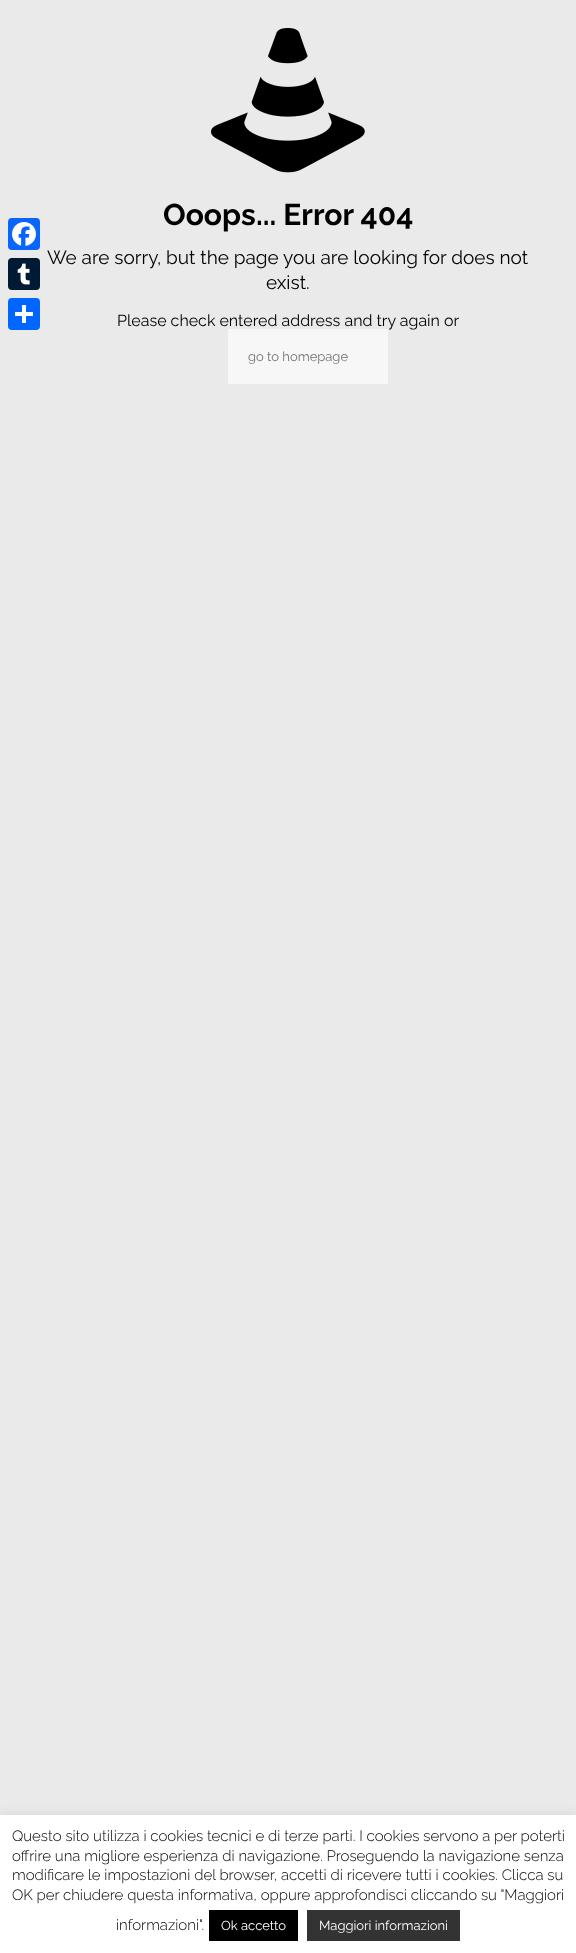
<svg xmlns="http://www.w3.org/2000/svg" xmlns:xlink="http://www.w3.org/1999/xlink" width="576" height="1953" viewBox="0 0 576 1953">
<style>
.cls-1{font:bold 30px Raleway;fill:#000000}
.cls-2{font:19px Raleway;fill:#000000}
.cls-3{font:16px Raleway;fill:#000000}
.cls-4{font:13px Raleway;fill:#747474}
.cls-5{font:300 15px Raleway;fill:#000000}
.cls-6{font:13px Raleway;fill:#ffffff}
</style>
<rect width="100%" height="100%" fill="#eaeaea"/>
<rect fill="#0866ff" x="8" y="218" width="32" height="32" rx="4"/>
<image xlink:href="image0.png" x="12" y="222" width="24" height="24"/>
<rect fill="#001935" x="8" y="258" width="32" height="32" rx="4"/>
<image xlink:href="image1.png" x="17" y="263" width="13" height="22"/>
<rect fill="#0166ff" x="8" y="298" width="32" height="32" rx="4"/>
<rect fill="#ffffff" x="22" y="305" width="4" height="18"/>
<rect fill="#ffffff" x="15" y="312" width="18" height="4"/>
<image xlink:href="image2.png" x="211" y="28" width="154" height="145"/>
<rect fill="#acabab" fill-opacity="0.3" filter="blur(5px)" x="0" y="1814" width="576" height="138"/>
<rect fill="#ffffff" x="0" y="1815" width="576" height="138"/>
<rect fill="#000000" x="209" y="1910" width="89" height="31"/>
<rect fill="#333333" x="307" y="1910" width="153" height="31"/>
<text class="cls-1" x="163" y="225">Ooops... Error 404</text>
<text class="cls-2" x="47" y="264">We are sorry, but the page you are looking for does not</text>
<text class="cls-2" x="266" y="289">exist.</text>
<text class="cls-3" x="117" y="326">Please check entered address and try again or</text>
<rect fill="#f7f7f7" x="228" y="329" width="160" height="55"/>
<text class="cls-4" x="248" y="361">go to homepage</text>
<text class="cls-5"><tspan x="12" y="1841">Questo sito utilizza i cookies tecnici e di terze parti. I cookies servono a per poterti</tspan><tspan x="12" y="1861">offrire una migliore esperienza di navigazione. Proseguendo la navigazione senza</tspan><tspan x="12" y="1880">modificare le impostazioni del browser, accetti di ricevere tutti i cookies. Clicca su</tspan><tspan x="12" y="1900">OK per chiudere questa informativa, oppure approfondisci cliccando su "Maggiori</tspan></text>
<text class="cls-5" x="116" y="1930">informazioni".</text>
<text class="cls-6" x="221" y="1930">Ok accetto</text>
<text class="cls-6" x="319" y="1930">Maggiori informazioni</text>
</svg>
